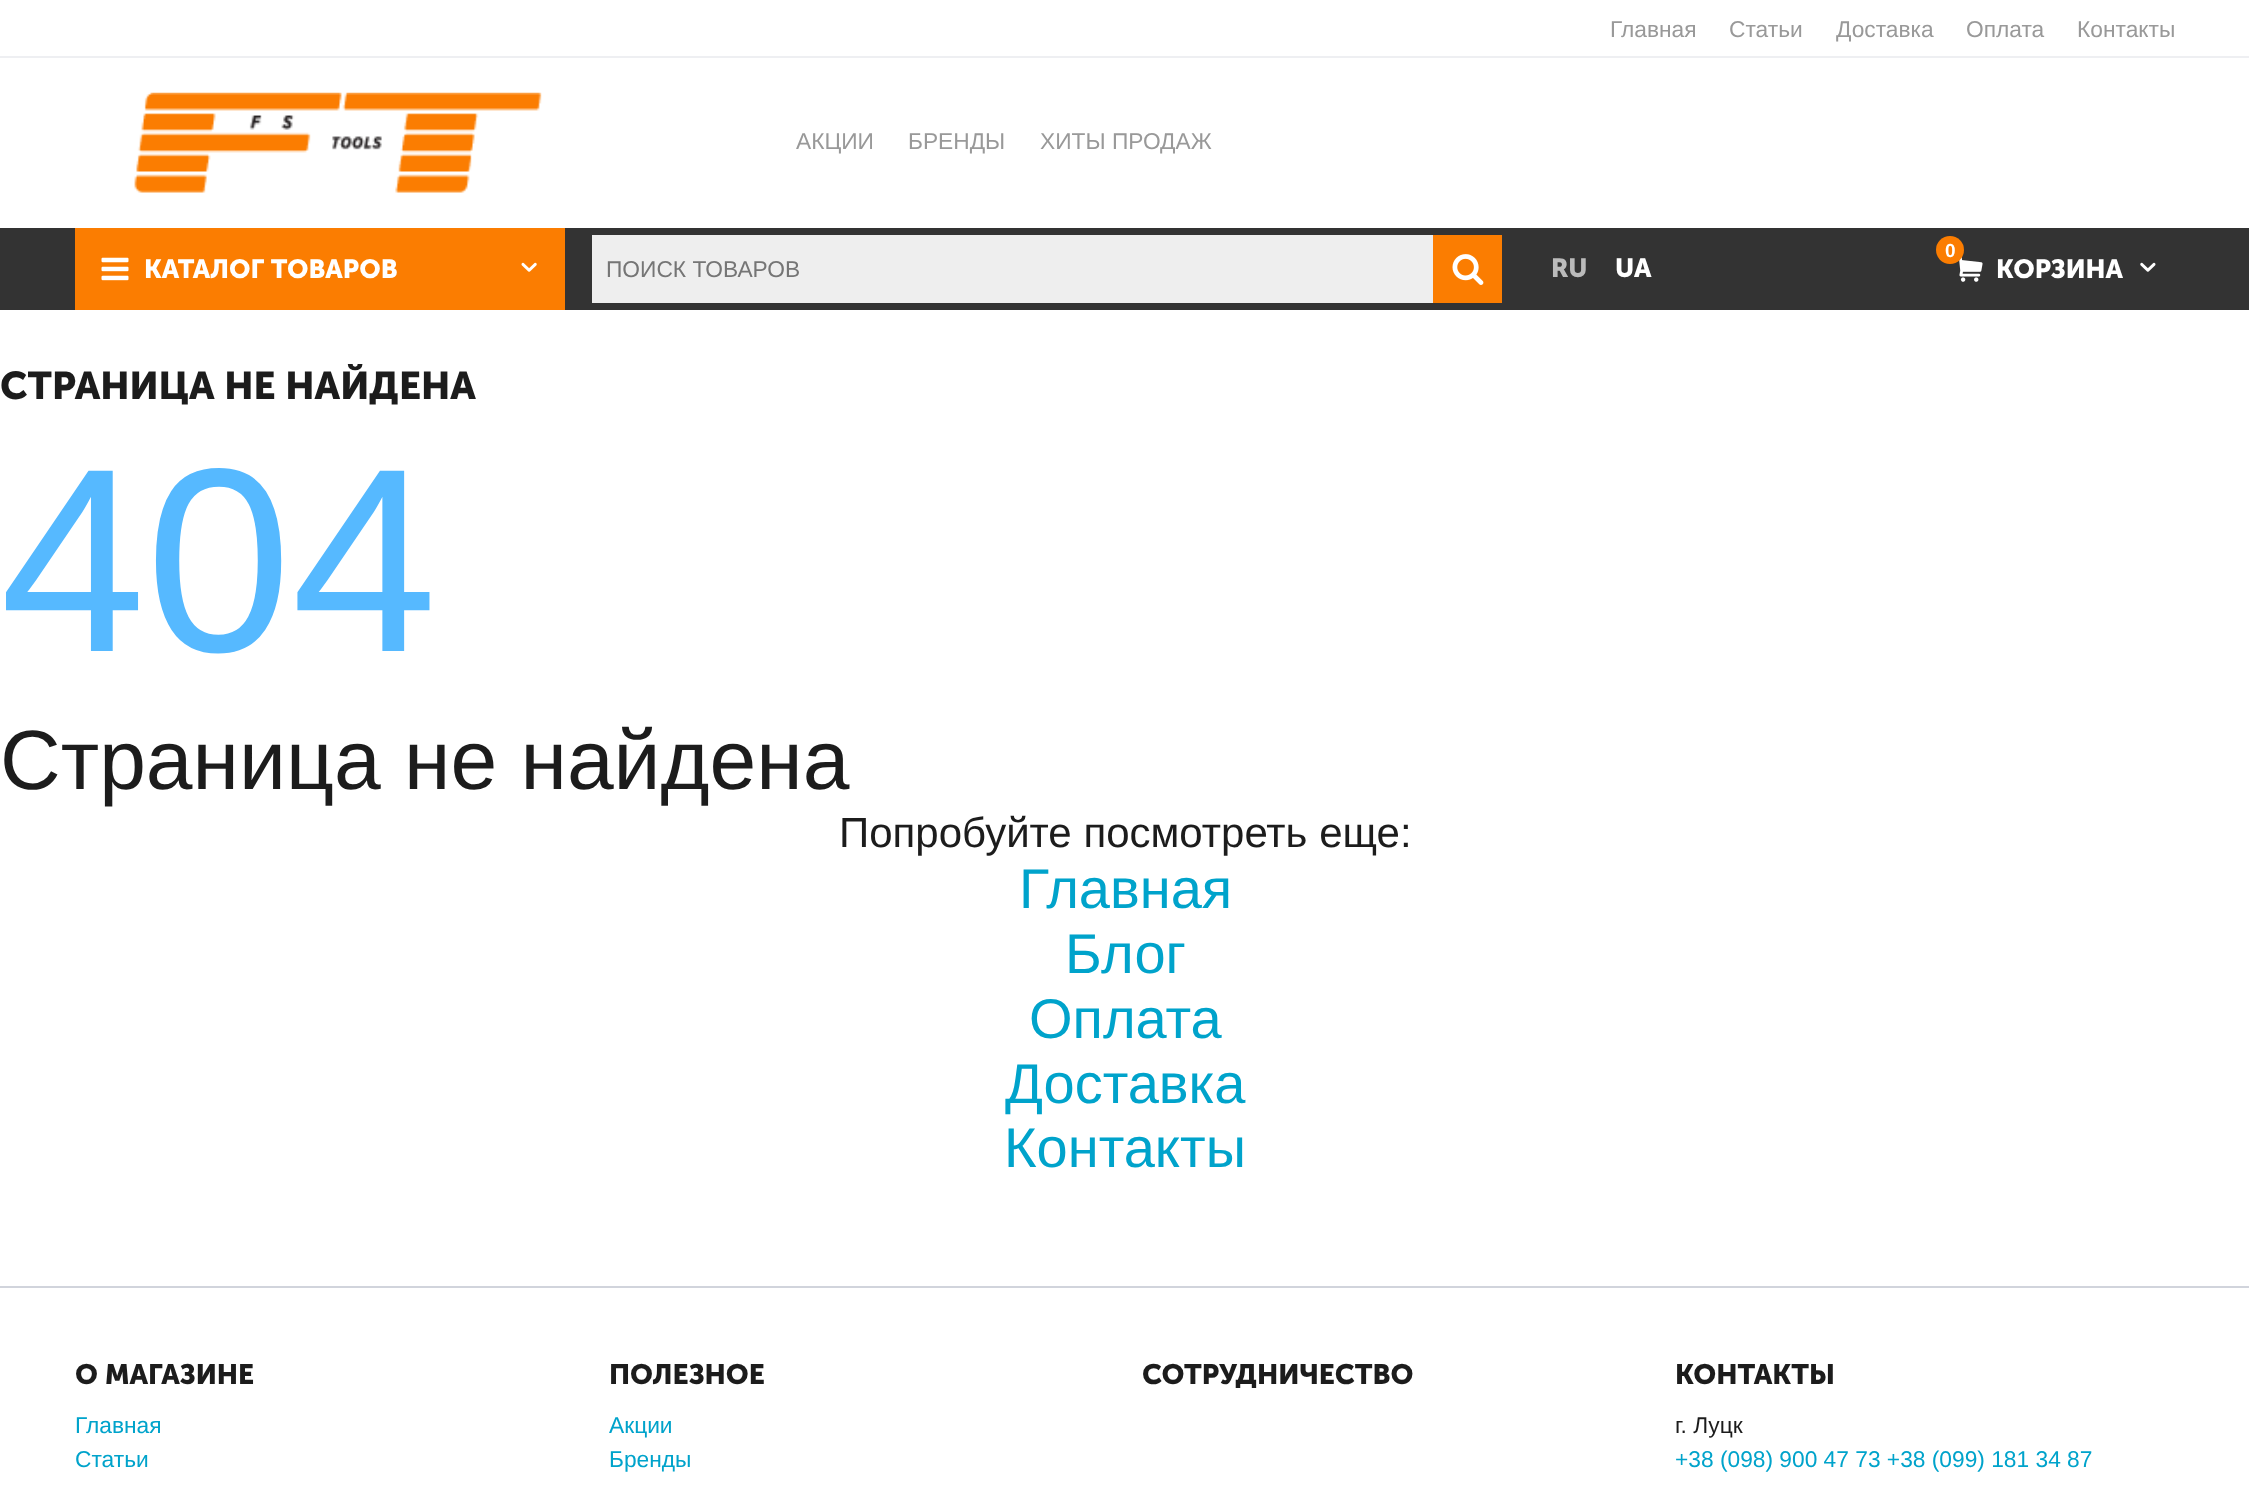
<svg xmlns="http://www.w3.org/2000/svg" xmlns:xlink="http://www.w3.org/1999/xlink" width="2249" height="1491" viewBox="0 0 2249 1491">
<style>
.cls-1{font:22.75px Liberation Sans;fill:#999999}
.cls-2{font:bold 26.25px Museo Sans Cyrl;fill:#ffffff}
.cls-3{font:22.75px Liberation Sans;fill:#757575}
.cls-4{font:bold 26.25px Museo Sans Cyrl;fill:#bbbbbb}
.cls-5{font:bold 19px Liberation Sans;fill:#ffffff}
.cls-6{font:bold 38.5px Museo Sans Cyrl;fill:#1c1c1c}
.cls-7{font:262px Liberation Sans;fill:#56b9ff}
.cls-8{font:84px Liberation Sans;fill:#1c1c1c}
.cls-9{font:42px Liberation Sans;fill:#1c1c1c}
.cls-10{font:56px Liberation Sans;fill:#00a3cb}
.cls-11{font:bold 28px Museo Sans Cyrl;fill:#1c1c1c}
.cls-12{font:22.75px Liberation Sans;fill:#00a3cb}
.cls-13{font:22.75px Liberation Sans;fill:#1c1c1c}
</style>
<rect width="100%" height="100%" fill="#ffffff"/>
<rect fill="#eeeff2" x="0" y="56" width="2249" height="2"/>
<image xlink:href="image0.png" x="134" y="92" width="408" height="101"/>
<rect fill="#333333" x="0" y="228" width="2249" height="82"/>
<rect fill="#fb7d01" x="75" y="228" width="490" height="82"/>
<image xlink:href="image1.png" x="101" y="257" width="28" height="24"/>
<image xlink:href="image2.png" x="521" y="262" width="16" height="10"/>
<rect fill="#eeeeee" x="592" y="235" width="841" height="68"/>
<rect fill="#fb7d01" x="1433" y="235" width="69" height="68"/>
<image xlink:href="image3.png" x="1452" y="254" width="32" height="31"/>
<image xlink:href="image4.png" x="1959" y="257" width="24" height="25"/>
<circle fill="#fb7d01" cx="1950" cy="250" r="14"/>
<image xlink:href="image5.png" x="2140" y="262" width="16" height="10"/>
<rect fill="#d1d4dc" x="0" y="1286" width="2249" height="2"/>
<text class="cls-1" x="1610" y="37">Главная</text>
<text class="cls-1" x="1729" y="37">Статьи</text>
<text class="cls-1" x="1836" y="37">Доставка</text>
<text class="cls-1" x="1966" y="37">Оплата</text>
<text class="cls-1" x="2077" y="37">Контакты</text>
<text class="cls-1" x="796" y="149">АКЦИИ</text>
<text class="cls-1" x="908" y="149">БРЕНДЫ</text>
<text class="cls-1" x="1040" y="149">ХИТЫ ПРОДАЖ</text>
<text class="cls-2" x="144" y="278">КАТАЛОГ ТОВАРОВ</text>
<text class="cls-3" x="606" y="277">ПОИСК ТОВАРОВ</text>
<text class="cls-4" x="1551" y="277">RU</text>
<text class="cls-2" x="1615" y="277">UA</text>
<text class="cls-5" x="1945" y="257">0</text>
<text class="cls-2" x="1996" y="278">КОРЗИНА</text>
<text class="cls-6" x="0" y="399">СТРАНИЦА НЕ НАЙДЕНА</text>
<text class="cls-7" x="0" y="651">404</text>
<text class="cls-8" x="0" y="789">Страница не найдена</text>
<text class="cls-9" x="839" y="847">Попробуйте посмотреть еще:</text>
<text class="cls-10" x="1019" y="908">Главная</text>
<text class="cls-10" x="1065" y="973">Блог</text>
<text class="cls-10" x="1029" y="1038">Оплата</text>
<text class="cls-10" x="1005" y="1103">Доставка</text>
<text class="cls-10" x="1004" y="1167">Контакты</text>
<text class="cls-11" x="75" y="1384">О МАГАЗИНЕ</text>
<text class="cls-12"><tspan x="75" y="1433">Главная</tspan><tspan x="75" y="1467">Статьи</tspan></text>
<text class="cls-11" x="609" y="1384">ПОЛЕЗНОЕ</text>
<text class="cls-12"><tspan x="609" y="1433">Акции</tspan><tspan x="609" y="1467">Бренды</tspan></text>
<text class="cls-11" x="1142" y="1384">СОТРУДНИЧЕСТВО</text>
<text class="cls-11" x="1675" y="1384">КОНТАКТЫ</text>
<text class="cls-13" x="1675" y="1433">г. Луцк</text>
<text class="cls-12" x="1675" y="1467">+38 (098) 900 47 73 +38 (099) 181 34 87</text>
</svg>
